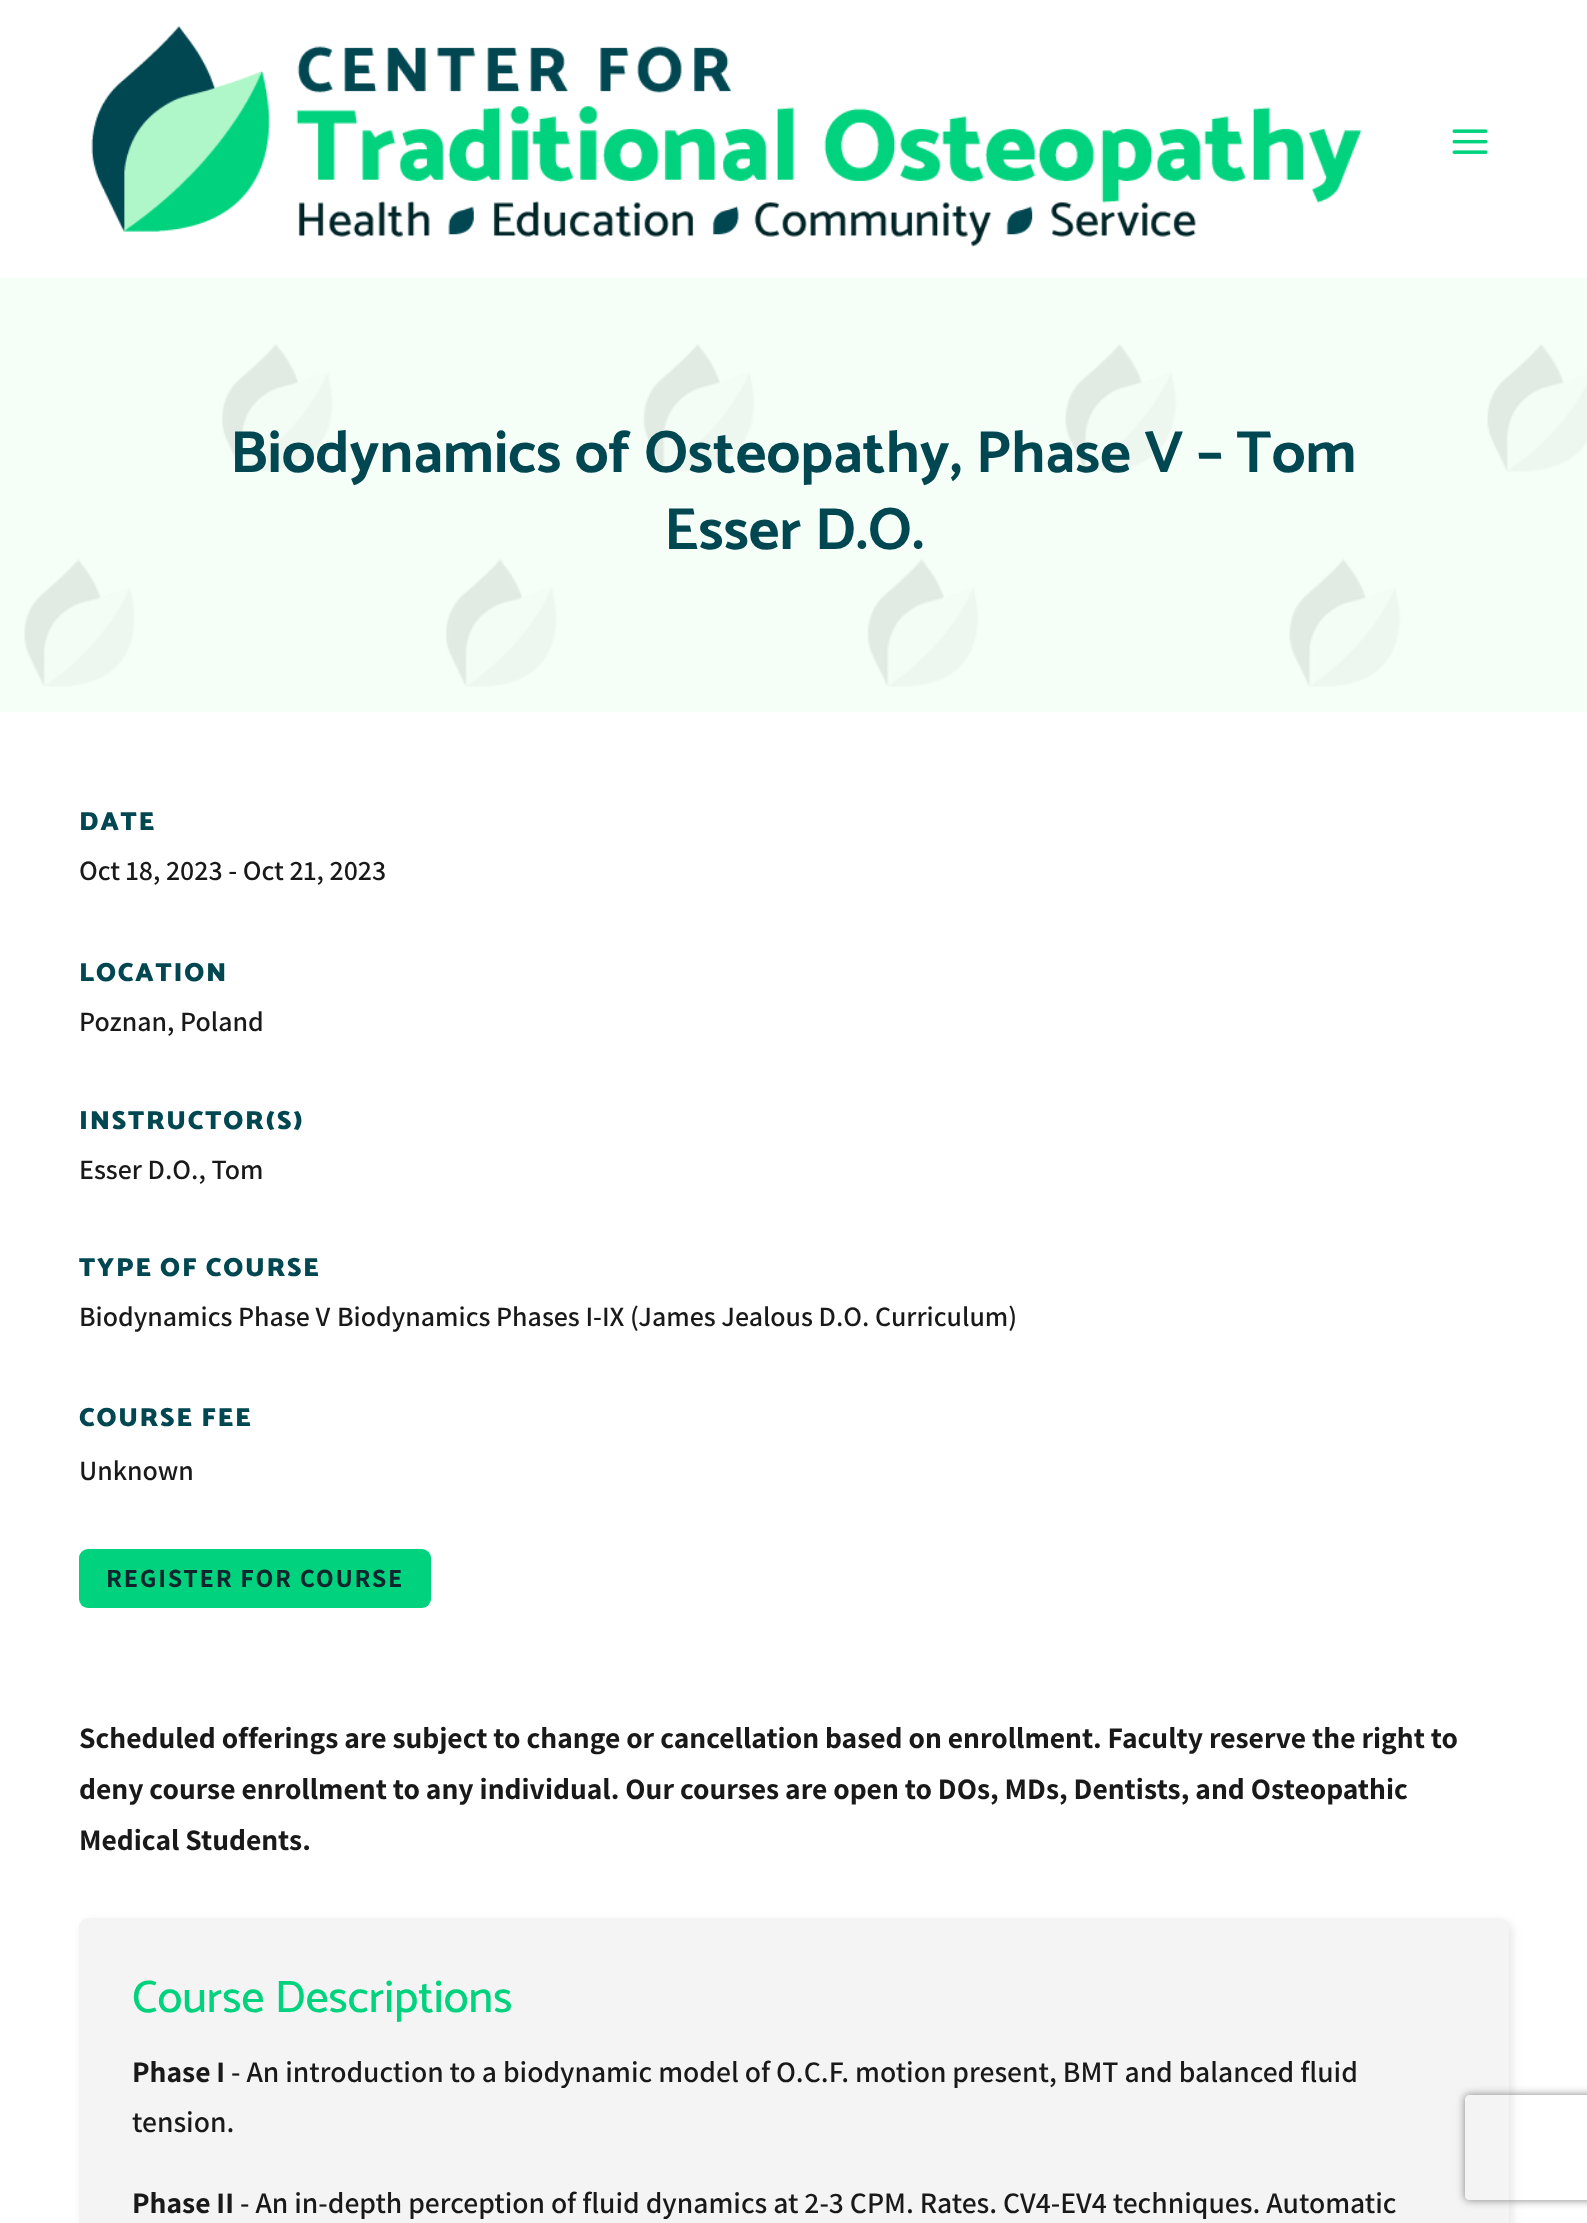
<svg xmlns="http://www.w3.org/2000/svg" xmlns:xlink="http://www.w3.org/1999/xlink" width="1587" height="2223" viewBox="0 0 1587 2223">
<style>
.cls-1{font:bold 59.5px Catamaran;fill:#004751}
.cls-2{font:900 26.25px Catamaran;letter-spacing:1.75px;fill:#004751}
.cls-3{font:600 28px Assistant;fill:#191919}
.cls-4{font:bold 26.25px Assistant;letter-spacing:1.75px;fill:#0e262e}
.cls-5{font:bold 29.75px Assistant;fill:#191919}
.cls-6{font:500 45.5px Catamaran;fill:#00d27d}
.cls-7{font:600 29.75px Assistant;fill:#191919}
</style>
<defs>
<clipPath id="clip1"><path d="M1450 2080H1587V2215H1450ZM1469 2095H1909C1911 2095 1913 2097 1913 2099V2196C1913 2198 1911 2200 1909 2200H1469C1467 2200 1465 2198 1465 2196V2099C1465 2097 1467 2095 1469 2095Z" clip-rule="evenodd"/></clipPath>
</defs>
<rect width="100%" height="100%" fill="#ffffff"/>
<image xlink:href="image0.png" x="91" y="26" width="1271" height="221"/>
<image xlink:href="image1.png" x="1452" y="129" width="36" height="25"/>
<rect fill="#f5fff8" x="0" y="278" width="1587" height="434"/>
<image xlink:href="image2.png" x="24" y="344" width="1563" height="343"/>
<rect fill="#00d27d" x="79" y="1549" width="352" height="59" rx="9"/>
<rect fill="#000000" fill-opacity="0.1" filter="blur(5px)" x="82" y="1922" width="1430" height="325" rx="9"/>
<rect fill="#f5f4f5" x="79" y="1918" width="1430" height="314" rx="9"/>
<g clip-path="url(#clip1)">
<rect fill="#808080" filter="blur(4.5px)" x="1465" y="2095" width="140" height="105" rx="4"/>
</g>
<text class="cls-1" x="230" y="472">Biodynamics of Osteopathy, Phase V – Tom</text>
<text class="cls-1" x="664" y="549">Esser D.O.</text>
<text class="cls-2" x="79" y="830">DATE</text>
<text class="cls-3" x="79" y="880">Oct 18, 2023 - Oct 21, 2023</text>
<text class="cls-2" x="79" y="981">LOCATION</text>
<text class="cls-3" x="79" y="1031">Poznan, Poland</text>
<text class="cls-2" x="79" y="1129">INSTRUCTOR(S)</text>
<text class="cls-3" x="79" y="1179">Esser D.O., Tom</text>
<text class="cls-2" x="79" y="1276">TYPE OF COURSE</text>
<text class="cls-3" x="79" y="1326">Biodynamics Phase V</text>
<text class="cls-3" x="337" y="1326">Biodynamics Phases I-IX (James Jealous D.O. Curriculum)</text>
<text class="cls-2" x="79" y="1426">COURSE FEE</text>
<text class="cls-3" x="79" y="1480">Unknown</text>
<text class="cls-4" x="106" y="1587">REGISTER FOR COURSE</text>
<text class="cls-5"><tspan x="79" y="1748">Scheduled offerings are subject to change or cancellation based on enrollment. Faculty reserve the right to</tspan><tspan x="79" y="1799">deny course enrollment to any individual. Our courses are open to DOs, MDs, Dentists, and Osteopathic</tspan><tspan x="79" y="1850">Medical Students.</tspan></text>
<text class="cls-6" x="132" y="2012">Course Descriptions</text>
<text class="cls-5" x="132" y="2082">Phase I</text>
<text class="cls-7" x="231" y="2082">- An introduction to a biodynamic model of O.C.F. motion present, BMT and balanced fluid</text>
<text class="cls-7" x="132" y="2132">tension.</text>
<text class="cls-5" x="132" y="2213">Phase II</text>
<text class="cls-7" x="240" y="2213">- An in-depth perception of fluid dynamics at 2-3 CPM. Rates. CV4-EV4 techniques. Automatic</text>
</svg>
